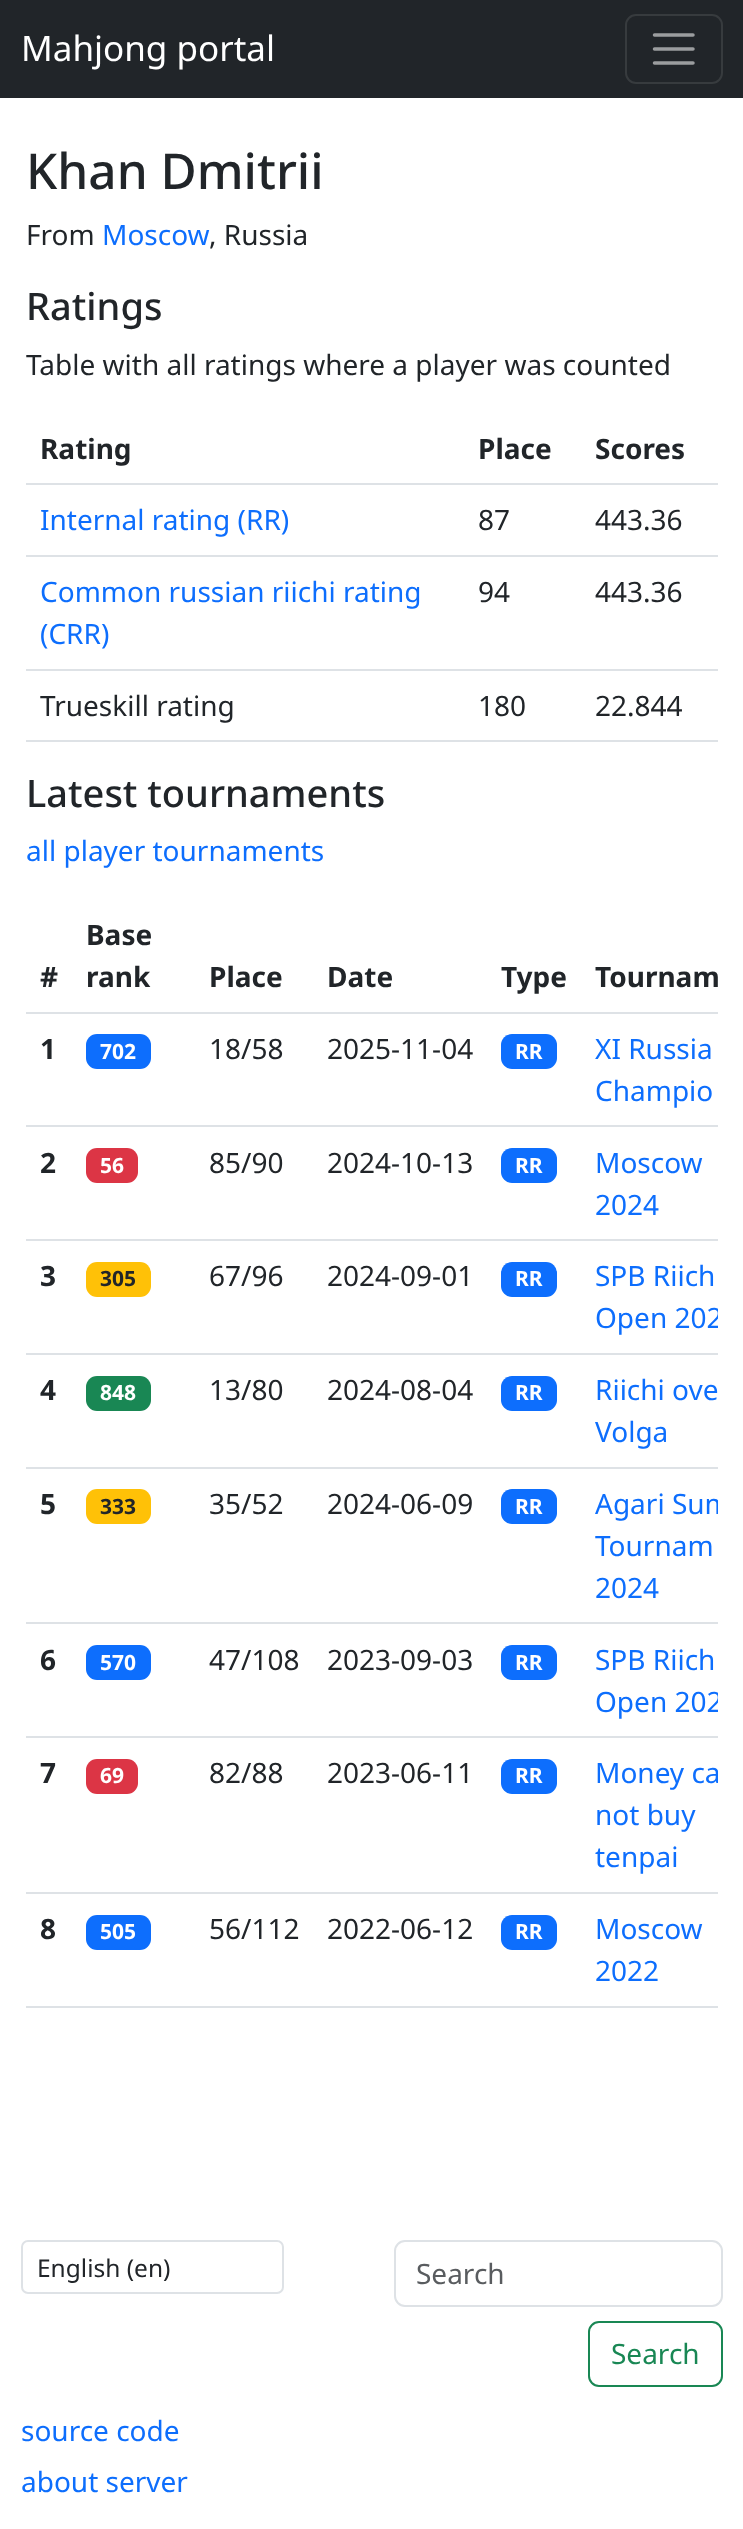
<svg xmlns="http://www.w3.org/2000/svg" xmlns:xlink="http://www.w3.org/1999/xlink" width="743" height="2529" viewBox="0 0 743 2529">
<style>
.cls-1{font:35px Noto Sans;fill:#ffffff}
.cls-2{font:500 49.5px Noto Sans;fill:#212529}
.cls-3{font:28px Noto Sans;fill:#212529}
.cls-4{font:28px Noto Sans;fill:#0d6efd}
.cls-5{font:500 38px Noto Sans;fill:#212529}
.cls-6{font:bold 28px Noto Sans;fill:#212529}
.cls-7{font:bold 21px Noto Sans;fill:#ffffff}
.cls-8{font:bold 21px Noto Sans;fill:#212529}
.cls-9{font:24.5px Noto Sans;fill:#212529}
.cls-10{font:28px Noto Sans;fill:#595c5f}
.cls-11{font:28px Noto Sans;fill:#198754}
</style>
<defs>
<clipPath id="clip1"><rect x="26" y="900" width="692" height="1135"/></clipPath>
</defs>
<rect width="100%" height="100%" fill="#ffffff"/>
<rect fill="#212529" x="0" y="0" width="743" height="98"/>
<rect fill="none" stroke="#373b3e" stroke-width="2" x="626" y="15" width="96" height="68" rx="10"/>
<path fill="none" stroke="#9b9d9f" stroke-width="3.5" stroke-linecap="round" d="M654.5 35H693M654.5 49H693M654.5 63H693"/>
<rect fill="#dee2e6" x="26" y="483" width="692" height="2"/>
<rect fill="#dee2e6" x="26" y="555" width="692" height="2"/>
<rect fill="#dee2e6" x="26" y="669" width="692" height="2"/>
<rect fill="#dee2e6" x="26" y="740" width="692" height="2"/>
<rect fill="#dee2e6" x="26" y="1012" width="692" height="2"/>
<rect fill="#0d6efd" x="86" y="1034" width="65" height="35" rx="11"/>
<rect fill="#0d6efd" x="501" y="1034" width="56" height="35" rx="11"/>
<rect fill="#dee2e6" x="26" y="1125" width="692" height="2"/>
<rect fill="#dc3545" x="86" y="1148" width="52" height="35" rx="11"/>
<rect fill="#0d6efd" x="501" y="1148" width="56" height="35" rx="11"/>
<rect fill="#dee2e6" x="26" y="1239" width="692" height="2"/>
<rect fill="#ffc107" x="86" y="1262" width="65" height="35" rx="11"/>
<rect fill="#0d6efd" x="501" y="1262" width="56" height="35" rx="11"/>
<rect fill="#dee2e6" x="26" y="1353" width="692" height="2"/>
<rect fill="#198754" x="86" y="1376" width="65" height="35" rx="11"/>
<rect fill="#0d6efd" x="501" y="1376" width="56" height="35" rx="11"/>
<rect fill="#dee2e6" x="26" y="1467" width="692" height="2"/>
<rect fill="#ffc107" x="86" y="1489" width="65" height="35" rx="11"/>
<rect fill="#0d6efd" x="501" y="1489" width="56" height="35" rx="11"/>
<rect fill="#dee2e6" x="26" y="1622" width="692" height="2"/>
<rect fill="#0d6efd" x="86" y="1645" width="65" height="35" rx="11"/>
<rect fill="#0d6efd" x="501" y="1645" width="56" height="35" rx="11"/>
<rect fill="#dee2e6" x="26" y="1736" width="692" height="2"/>
<rect fill="#dc3545" x="86" y="1759" width="52" height="35" rx="11"/>
<rect fill="#0d6efd" x="501" y="1759" width="56" height="35" rx="11"/>
<rect fill="#dee2e6" x="26" y="1892" width="692" height="2"/>
<rect fill="#0d6efd" x="86" y="1915" width="65" height="35" rx="11"/>
<rect fill="#0d6efd" x="501" y="1915" width="56" height="35" rx="11"/>
<rect fill="#dee2e6" x="26" y="2006" width="692" height="2"/>
<rect fill="none" stroke="#dee2e6" stroke-width="2" x="22" y="2241" width="261" height="52" rx="6"/>
<rect fill="none" stroke="#dee2e6" stroke-width="2" x="395" y="2241" width="327" height="65" rx="10"/>
<rect fill="none" stroke="#198754" stroke-width="2" x="589" y="2322" width="133" height="64" rx="10"/>
<text class="cls-1" x="21" y="61">Mahjong portal</text>
<text class="cls-2" x="26" y="189">Khan Dmitrii</text>
<text class="cls-3" x="26" y="245">From</text>
<text class="cls-4" x="102" y="245">Moscow</text>
<text class="cls-3" x="209" y="245">, Russia</text>
<text class="cls-5" x="26" y="320">Ratings</text>
<text class="cls-3" x="26" y="375">Table with all ratings where a player was counted</text>
<text class="cls-6" x="40" y="459">Rating</text>
<text class="cls-6" x="478" y="459">Place</text>
<text class="cls-6" x="595" y="459">Scores</text>
<text class="cls-4" x="40" y="530">Internal rating (RR)</text>
<text class="cls-3" x="478" y="530">87</text>
<text class="cls-3" x="595" y="530">443.36</text>
<text class="cls-4"><tspan x="40" y="602">Common russian riichi rating</tspan><tspan x="40" y="644">(CRR)</tspan></text>
<text class="cls-3" x="478" y="602">94</text>
<text class="cls-3" x="595" y="602">443.36</text>
<text class="cls-3" x="40" y="716">Trueskill rating</text>
<text class="cls-3" x="478" y="716">180</text>
<text class="cls-3" x="595" y="716">22.844</text>
<text class="cls-5" x="26" y="807">Latest tournaments</text>
<text class="cls-4" x="26" y="861">all player tournaments</text>
<text class="cls-6" x="40" y="987">#</text>
<text class="cls-6"><tspan x="86" y="945">Base</tspan><tspan x="86" y="987">rank</tspan></text>
<text class="cls-6" x="209" y="987">Place</text>
<text class="cls-6" x="327" y="987">Date</text>
<text class="cls-6" x="501" y="987">Type</text>
<text class="cls-6" x="595" y="987">Tournam</text>
<text class="cls-6" x="40" y="1059">1</text>
<text class="cls-7" x="100" y="1059">702</text>
<text class="cls-3" x="209" y="1059">18/58</text>
<text class="cls-3" x="327" y="1059">2025-11-04</text>
<text class="cls-7" x="515" y="1059">RR</text>
<text class="cls-4"><tspan x="595" y="1059">XI Russia</tspan><tspan x="595" y="1101">Champio</tspan></text>
<text class="cls-6" x="40" y="1173">2</text>
<text class="cls-7" x="100" y="1173">56</text>
<text class="cls-3" x="209" y="1173">85/90</text>
<text class="cls-3" x="327" y="1173">2024-10-13</text>
<text class="cls-7" x="515" y="1173">RR</text>
<text class="cls-4"><tspan x="595" y="1173">Moscow</tspan><tspan x="595" y="1215">2024</tspan></text>
<text class="cls-6" x="40" y="1286">3</text>
<text class="cls-8" x="100" y="1286">305</text>
<text class="cls-3" x="209" y="1286">67/96</text>
<text class="cls-3" x="327" y="1286">2024-09-01</text>
<text class="cls-7" x="515" y="1286">RR</text>
<text class="cls-4" x="595" y="1286">SPB Riich</text>
<g clip-path="url(#clip1)">
<text class="cls-4" x="595" y="1328">Open 202</text>
</g>
<text class="cls-6" x="40" y="1400">4</text>
<text class="cls-7" x="100" y="1400">848</text>
<text class="cls-3" x="209" y="1400">13/80</text>
<text class="cls-3" x="327" y="1400">2024-08-04</text>
<text class="cls-7" x="515" y="1400">RR</text>
<text class="cls-4"><tspan x="595" y="1400">Riichi ove</tspan><tspan x="595" y="1442">Volga</tspan></text>
<text class="cls-6" x="40" y="1514">5</text>
<text class="cls-8" x="100" y="1514">333</text>
<text class="cls-3" x="209" y="1514">35/52</text>
<text class="cls-3" x="327" y="1514">2024-06-09</text>
<text class="cls-7" x="515" y="1514">RR</text>
<g clip-path="url(#clip1)">
<text class="cls-4" x="595" y="1514">Agari Sum</text>
</g>
<text class="cls-4"><tspan x="595" y="1556">Tournam</tspan><tspan x="595" y="1598">2024</tspan></text>
<text class="cls-6" x="40" y="1670">6</text>
<text class="cls-7" x="100" y="1670">570</text>
<text class="cls-3" x="209" y="1670">47/108</text>
<text class="cls-3" x="327" y="1670">2023-09-03</text>
<text class="cls-7" x="515" y="1670">RR</text>
<text class="cls-4" x="595" y="1670">SPB Riich</text>
<g clip-path="url(#clip1)">
<text class="cls-4" x="595" y="1712">Open 202</text>
</g>
<text class="cls-6" x="40" y="1783">7</text>
<text class="cls-7" x="100" y="1783">69</text>
<text class="cls-3" x="209" y="1783">82/88</text>
<text class="cls-3" x="327" y="1783">2023-06-11</text>
<text class="cls-7" x="515" y="1783">RR</text>
<g clip-path="url(#clip1)">
<text class="cls-4" x="595" y="1783">Money ca</text>
</g>
<text class="cls-4"><tspan x="595" y="1825">not buy</tspan><tspan x="595" y="1867">tenpai</tspan></text>
<text class="cls-6" x="40" y="1939">8</text>
<text class="cls-7" x="100" y="1939">505</text>
<text class="cls-3" x="209" y="1939">56/112</text>
<text class="cls-3" x="327" y="1939">2022-06-12</text>
<text class="cls-7" x="515" y="1939">RR</text>
<text class="cls-4"><tspan x="595" y="1939">Moscow</tspan><tspan x="595" y="1981">2022</tspan></text>
<text class="cls-9" x="37" y="2277">English (en)</text>
<text class="cls-10" x="416" y="2284">Search</text>
<text class="cls-11" x="611" y="2364">Search</text>
<text class="cls-4"><tspan x="21" y="2441">source code</tspan><tspan x="21" y="2492">about server</tspan></text>
</svg>
